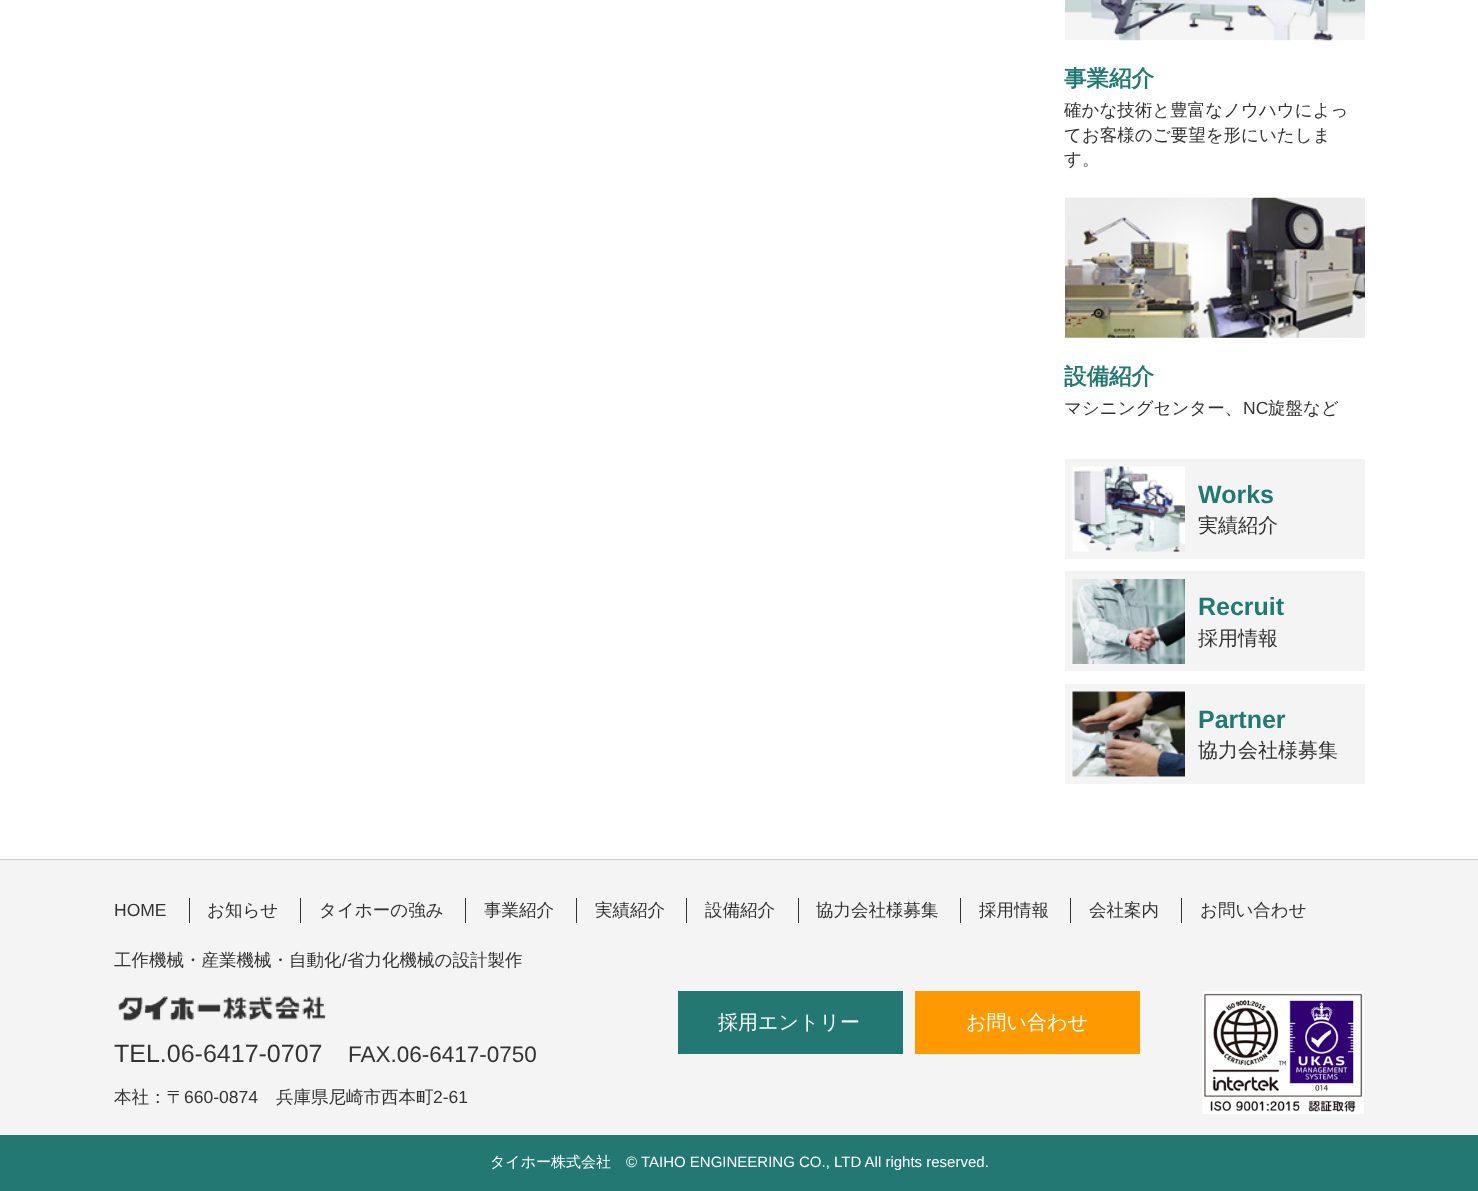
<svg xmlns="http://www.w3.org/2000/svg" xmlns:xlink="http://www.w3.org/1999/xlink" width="1478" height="1191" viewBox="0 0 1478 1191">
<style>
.cls-1{font:bold 22.5px WenQuanYi Zen Hei;fill:#227873}
.cls-2{font:500 17.5px WenQuanYi Zen Hei;fill:#333333}
.cls-3{font:17.5px Liberation Sans;fill:#333333}
.cls-4{font:bold 25px Liberation Sans;fill:#227873}
.cls-5{font:500 20px WenQuanYi Zen Hei;fill:#333333}
.cls-6{font:25px Liberation Sans;fill:#333333}
.cls-7{font:22.5px Liberation Sans;fill:#333333}
.cls-8{font:500 20px WenQuanYi Zen Hei;fill:#ffffff}
.cls-9{font:500 15px WenQuanYi Zen Hei;fill:#ffffff}
.cls-10{font:15px Liberation Sans;fill:#ffffff}
</style>
<rect width="100%" height="100%" fill="#ffffff"/>
<image xlink:href="image0.png" x="1065" y="0" width="300" height="41"/>
<image xlink:href="image1.png" x="1065" y="197" width="300" height="141"/>
<rect fill="#f4f4f4" x="1065" y="459" width="300" height="100"/>
<image xlink:href="image2.png" x="1072" y="466" width="113" height="86"/>
<rect fill="#f4f4f4" x="1065" y="571" width="300" height="100"/>
<image xlink:href="image3.png" x="1072" y="579" width="113" height="85"/>
<rect fill="#f4f4f4" x="1065" y="684" width="300" height="100"/>
<image xlink:href="image4.png" x="1072" y="691" width="113" height="86"/>
<rect fill="#f4f4f4" x="0" y="860" width="1478" height="275"/>
<rect fill="#cccccc" x="0" y="859" width="1478" height="1"/>
<rect fill="#333333" x="189" y="898" width="1" height="25"/>
<rect fill="#333333" x="300" y="898" width="1" height="25"/>
<rect fill="#333333" x="465" y="898" width="1" height="25"/>
<rect fill="#333333" x="576" y="898" width="1" height="25"/>
<rect fill="#333333" x="686" y="898" width="1" height="25"/>
<rect fill="#333333" x="798" y="898" width="1" height="25"/>
<rect fill="#333333" x="960" y="898" width="1" height="25"/>
<rect fill="#333333" x="1070" y="898" width="1" height="25"/>
<rect fill="#333333" x="1181" y="898" width="1" height="25"/>
<image xlink:href="image5.png" x="118" y="996" width="208" height="25"/>
<rect fill="#237874" x="678" y="991" width="225" height="63"/>
<rect fill="#ff9900" x="915" y="991" width="225" height="63"/>
<image xlink:href="image6.png" x="1202" y="991" width="162" height="123"/>
<rect fill="#237874" x="0" y="1135" width="1478" height="56"/>
<text class="cls-1" x="1064" y="86">事業紹介</text>
<text class="cls-2"><tspan x="1064" y="116">確かな技術と豊富なノウハウによっ</tspan><tspan x="1064" y="141">てお客様のご要望を形にいたしま</tspan><tspan x="1064" y="165">す。</tspan></text>
<text class="cls-1" x="1064" y="384">設備紹介</text>
<text class="cls-2" x="1064" y="414">マシニングセンター、</text>
<text class="cls-3" x="1243" y="414">NC</text>
<text class="cls-2" x="1268" y="414">旋盤など</text>
<text class="cls-4" x="1198" y="503">Works</text>
<text class="cls-5" x="1198" y="532">実績紹介</text>
<text class="cls-4" x="1198" y="615">Recruit</text>
<text class="cls-5" x="1198" y="645">採用情報</text>
<text class="cls-4" x="1198" y="728">Partner</text>
<text class="cls-5" x="1198" y="757">協力会社様募集</text>
<text class="cls-3" x="114" y="916">HOME</text>
<text class="cls-2" x="207" y="916">お知らせ</text>
<text class="cls-2" x="319" y="916">タイホーの強み</text>
<text class="cls-2" x="484" y="916">事業紹介</text>
<text class="cls-2" x="595" y="916">実績紹介</text>
<text class="cls-2" x="705" y="916">設備紹介</text>
<text class="cls-2" x="816" y="916">協力会社様募集</text>
<text class="cls-2" x="979" y="916">採用情報</text>
<text class="cls-2" x="1089" y="916">会社案内</text>
<text class="cls-2" x="1200" y="916">お問い合わせ</text>
<text class="cls-2" x="114" y="966">工作機械・産業機械・自動化</text>
<text class="cls-3" x="342" y="966">/</text>
<text class="cls-2" x="347" y="966">省力化機械の設計製作</text>
<text class="cls-6" x="114" y="1062">TEL.06-6417-0707</text>
<text class="cls-7" x="348" y="1062">FAX.06-6417-0750</text>
<text class="cls-2" x="114" y="1103">本社：〒</text>
<text class="cls-3" x="184" y="1103">660-0874</text>
<text class="cls-2" x="276" y="1103">兵庫県尼崎市西本町</text>
<text class="cls-3" x="433" y="1103">2-61</text>
<text class="cls-8" x="718" y="1029">採用エントリー</text>
<text class="cls-8" x="966" y="1029">お問い合わせ</text>
<text class="cls-9" x="490" y="1167">タイホー株式会社</text>
<text class="cls-10" x="626" y="1167">© TAIHO ENGINEERING CO., LTD All rights reserved.</text>
</svg>
